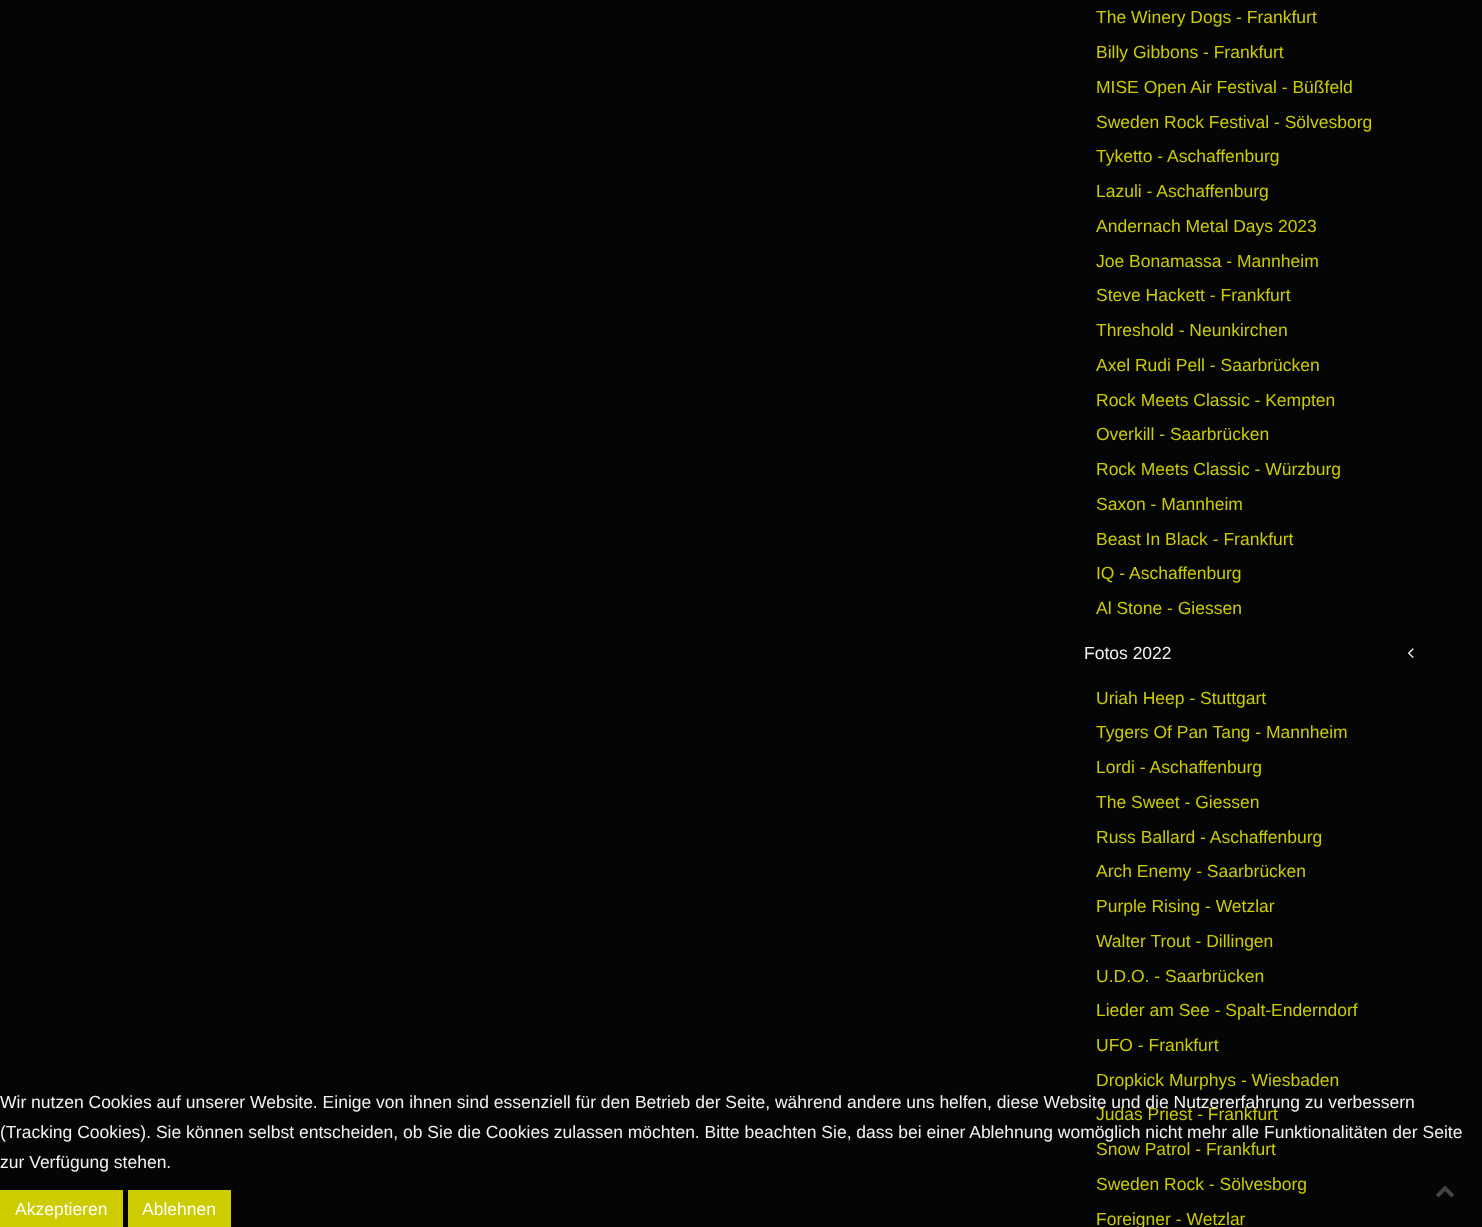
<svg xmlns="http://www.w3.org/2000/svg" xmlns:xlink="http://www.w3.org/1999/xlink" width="1482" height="1227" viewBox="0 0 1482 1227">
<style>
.cls-1{font:17.5px Liberation Sans;fill:#cccc00}
.cls-2{font:17.5px Liberation Sans;fill:#f2f2f2}
.cls-3{font:17.5px Liberation Sans;fill:#ffffff}
</style>
<rect width="100%" height="100%" fill="#050505"/>
<image xlink:href="image0.png" x="1408" y="648" width="6" height="10"/>
<rect fill="#cccc00" x="0" y="1190" width="123" height="37"/>
<rect fill="#cccc00" x="128" y="1190" width="103" height="37"/>
<image xlink:href="image1.png" x="1436" y="1185" width="18" height="13"/>
<text class="cls-1" x="1096" y="23">The Winery Dogs - Frankfurt</text>
<text class="cls-1" x="1096" y="58">Billy Gibbons - Frankfurt</text>
<text class="cls-1" x="1096" y="93">MISE Open Air Festival - Büßfeld</text>
<text class="cls-1"><tspan x="1096" y="128">Sweden Rock Festival - Sölvesborg</tspan><tspan x="1096" y="162">Tyketto - Aschaffenburg</tspan></text>
<text class="cls-1" x="1096" y="197">Lazuli - Aschaffenburg</text>
<text class="cls-1" x="1096" y="232">Andernach Metal Days 2023</text>
<text class="cls-1"><tspan x="1096" y="267">Joe Bonamassa - Mannheim</tspan><tspan x="1096" y="301">Steve Hackett - Frankfurt</tspan></text>
<text class="cls-1" x="1096" y="336">Threshold - Neunkirchen</text>
<text class="cls-1" x="1096" y="371">Axel Rudi Pell - Saarbrücken</text>
<text class="cls-1"><tspan x="1096" y="406">Rock Meets Classic - Kempten</tspan><tspan x="1096" y="440">Overkill - Saarbrücken</tspan></text>
<text class="cls-1" x="1096" y="475">Rock Meets Classic - Würzburg</text>
<text class="cls-1" x="1096" y="510">Saxon - Mannheim</text>
<text class="cls-1"><tspan x="1096" y="545">Beast In Black - Frankfurt</tspan><tspan x="1096" y="579">IQ - Aschaffenburg</tspan></text>
<text class="cls-1" x="1096" y="614">Al Stone - Giessen</text>
<text class="cls-2" x="1084" y="659">Fotos 2022</text>
<text class="cls-1"><tspan x="1096" y="704">Uriah Heep - Stuttgart</tspan><tspan x="1096" y="738">Tygers Of Pan Tang - Mannheim</tspan></text>
<text class="cls-1" x="1096" y="773">Lordi - Aschaffenburg</text>
<text class="cls-1" x="1096" y="808">The Sweet - Giessen</text>
<text class="cls-1"><tspan x="1096" y="843">Russ Ballard - Aschaffenburg</tspan><tspan x="1096" y="877">Arch Enemy - Saarbrücken</tspan></text>
<text class="cls-1" x="1096" y="912">Purple Rising - Wetzlar</text>
<text class="cls-1" x="1096" y="947">Walter Trout - Dillingen</text>
<text class="cls-1"><tspan x="1096" y="982">U.D.O. - Saarbrücken</tspan><tspan x="1096" y="1016">Lieder am See - Spalt-Enderndorf</tspan></text>
<text class="cls-1" x="1096" y="1051">UFO - Frankfurt</text>
<text class="cls-1"><tspan x="1096" y="1086">Dropkick Murphys - Wiesbaden</tspan><tspan x="1096" y="1120">Judas Priest - Frankfurt</tspan></text>
<text class="cls-1" x="1096" y="1155">Snow Patrol - Frankfurt</text>
<text class="cls-1" x="1096" y="1190">Sweden Rock - Sölvesborg</text>
<text class="cls-1" x="1096" y="1225">Foreigner - Wetzlar</text>
<text class="cls-2"><tspan x="0" y="1108">Wir nutzen Cookies auf unserer Website. Einige von ihnen sind essenziell für den Betrieb der Seite, während andere uns helfen, diese Website und die Nutzererfahrung zu verbessern</tspan><tspan x="0" y="1138">(Tracking Cookies). Sie können selbst entscheiden, ob Sie die Cookies zulassen möchten. Bitte beachten Sie, dass bei einer Ablehnung womöglich nicht mehr alle Funktionalitäten der Seite</tspan><tspan x="0" y="1168">zur Verfügung stehen.</tspan></text>
<text class="cls-3" x="15" y="1215">Akzeptieren</text>
<text class="cls-3" x="142" y="1215">Ablehnen</text>
</svg>
